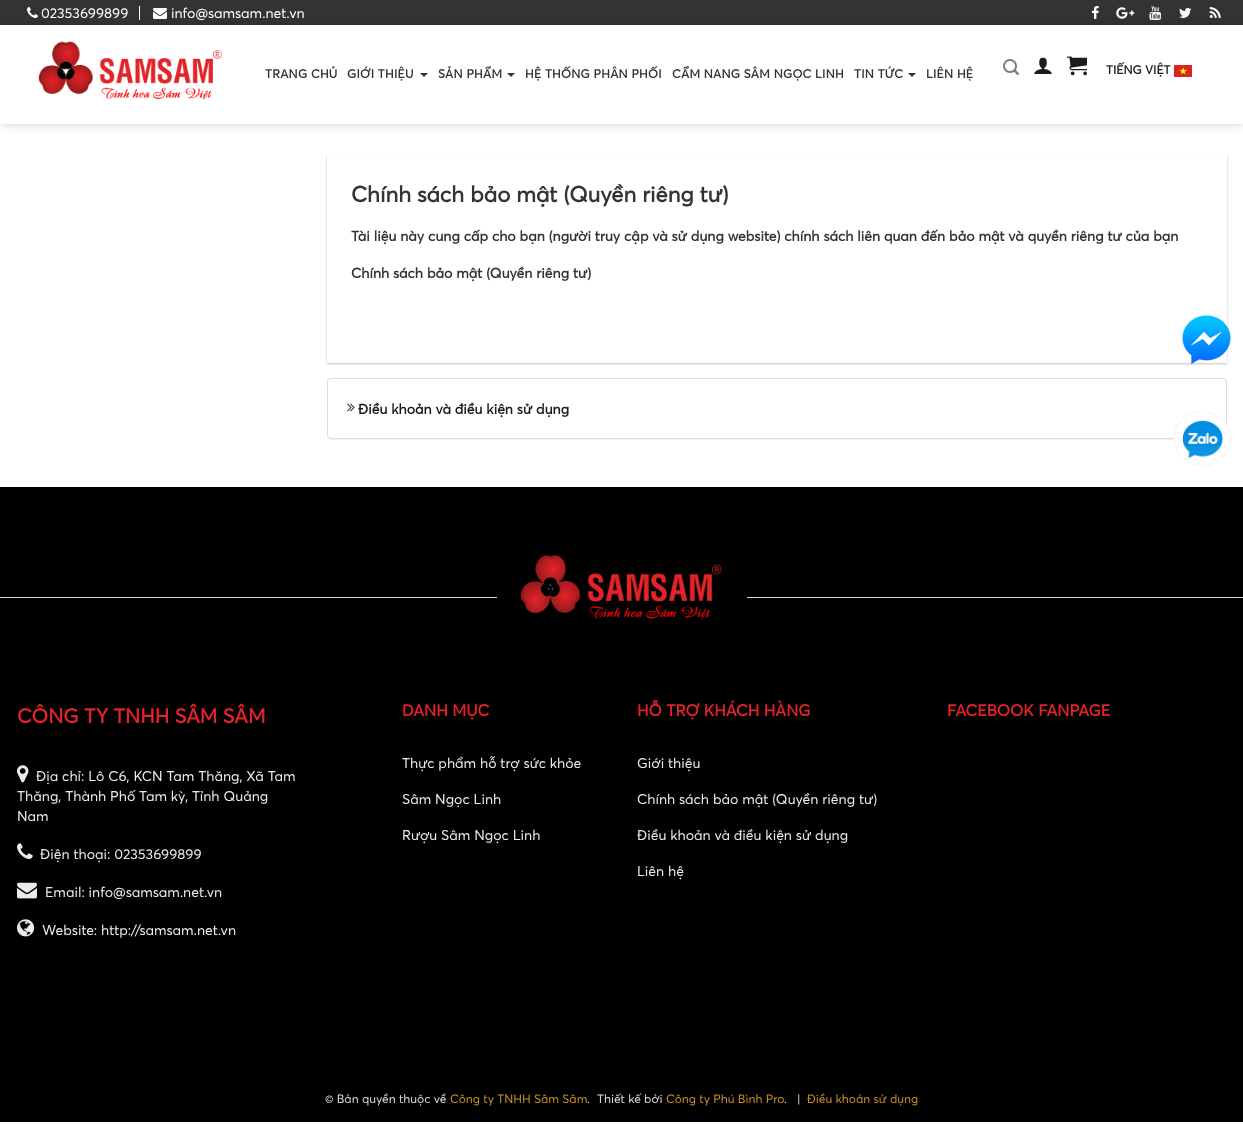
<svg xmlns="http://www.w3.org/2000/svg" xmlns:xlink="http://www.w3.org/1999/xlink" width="1243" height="1124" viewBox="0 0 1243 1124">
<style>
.cls-1{font:14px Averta;fill:#ffffff}
.cls-2{font:bold 12px Averta;letter-spacing:0.25px;fill:#333333}
.cls-3{font:bold 12px Averta;fill:#1c1c1c}
.cls-4{font:bold 22px Averta;fill:#333333}
.cls-5{font:bold 14px Averta;fill:#333333}
.cls-6{font:bold 14px Averta;fill:#1c1c1c}
.cls-7{font:bold 20px Averta;fill:#e3222a}
.cls-8{font:14px Averta;fill:#ebebeb}
.cls-9{font:bold 16px Averta;fill:#e3222a}
.cls-10{font:12px Averta;fill:#dcdcdc}
.cls-11{font:12px Averta;fill:#cc8f29}
</style>
<defs>
<clipPath id="clip1"><path d="M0 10H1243V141H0ZM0 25H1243V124H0Z" clip-rule="evenodd"/></clipPath>
<clipPath id="clip2"><path d="M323 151H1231V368H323ZM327 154H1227V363H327Z" clip-rule="evenodd"/></clipPath>
</defs>
<rect width="100%" height="100%" fill="#ffffff"/>
<rect fill="#333333" x="0" y="0" width="1243" height="25"/>
<rect fill="#ffffff" x="139" y="6" width="1" height="14"/>
<image xlink:href="image0.png" x="27" y="7" width="11" height="11"/>
<image xlink:href="image1.png" x="153" y="8" width="14" height="11"/>
<image xlink:href="image2.png" x="1092" y="6" width="7" height="13"/>
<image xlink:href="image3.png" x="1116" y="7" width="19" height="12"/>
<image xlink:href="image4.png" x="1149" y="6" width="12" height="14"/>
<image xlink:href="image5.png" x="1179" y="8" width="13" height="10"/>
<image xlink:href="image6.png" x="1209" y="7" width="12" height="11"/>
<g clip-path="url(#clip1)">
<rect fill="#000000" fill-opacity="0.15" filter="blur(5px)" x="1" y="26" width="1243" height="99"/>
</g>
<image xlink:href="image7.png" x="38" y="41" width="185" height="59"/>
<path fill="#333333" d="M420 73H428L424 77Z"/>
<path fill="#333333" d="M507 73H515L511 77Z"/>
<path fill="#333333" d="M908 73H916L912 77Z"/>
<image xlink:href="image8.png" x="1003" y="59" width="16" height="16"/>
<image xlink:href="image9.png" x="1034" y="57" width="18" height="17"/>
<image xlink:href="image10.png" x="1067" y="56" width="20" height="20"/>
<image xlink:href="image11.png" x="1174" y="65" width="18" height="12"/>
<g clip-path="url(#clip2)">
<rect fill="#000000" fill-opacity="0.24" filter="blur(1px)" x="327" y="155" width="900" height="209"/>
</g>
<rect fill="#000000" fill-opacity="0.05" filter="blur(0.5px)" x="327" y="379" width="900" height="61" rx="4"/>
<rect fill="#ffffff" stroke="#dddddd" x="327.5" y="378.5" width="899" height="60" rx="3.5"/>
<image xlink:href="image12.png" x="347" y="403" width="8" height="9"/>
<image xlink:href="image13.png" x="1182" y="314" width="49" height="51"/>
<image xlink:href="image14.png" x="1174" y="411" width="57" height="55"/>
<rect fill="#000000" x="0" y="487" width="1243" height="635"/>
<rect fill="#d0d0d0" x="0" y="597" width="1243" height="1"/>
<rect fill="#000000" x="497" y="597" width="250" height="1"/>
<image xlink:href="image15.png" x="520" y="555" width="202" height="65"/>
<image xlink:href="image16.png" x="17" y="765" width="12" height="18"/>
<image xlink:href="image17.png" x="17" y="843" width="16" height="16"/>
<image xlink:href="image18.png" x="17" y="882" width="20" height="17"/>
<image xlink:href="image19.png" x="17" y="919" width="18" height="18"/>
<text class="cls-1" x="41" y="18">02353699899</text>
<text class="cls-1" x="171" y="18">info@samsam.net.vn</text>
<text class="cls-2" x="265" y="78">TRANG CHỦ</text>
<text class="cls-2" x="347" y="78">GIỚI THIỆU</text>
<text class="cls-2" x="438" y="78">SẢN PHẨM</text>
<text class="cls-2" x="525" y="78">HỆ THỐNG PHÂN PHỐI</text>
<text class="cls-2" x="672" y="78">CẨM NANG SÂM NGỌC LINH</text>
<text class="cls-2" x="854" y="78">TIN TỨC</text>
<text class="cls-2" x="926" y="78">LIÊN HỆ</text>
<text class="cls-3" x="1106" y="74">TIẾNG VIỆT</text>
<text class="cls-4" x="351" y="202">Chính sách bảo mật (Quyền riêng tư)</text>
<text class="cls-5" x="351" y="241">Tài liệu này cung cấp cho bạn (người truy cập và sử dụng website) chính sách liên quan đến bảo mật và quyền riêng tư của bạn</text>
<text class="cls-5" x="351" y="278">Chính sách bảo mật (Quyền riêng tư)</text>
<text class="cls-6" x="358" y="414">Điều khoản và điều kiện sử dụng</text>
<text class="cls-7" x="17" y="723">CÔNG TY TNHH SÂM SÂM</text>
<text class="cls-8" x="36" y="781">Địa chỉ: Lô C6, KCN Tam Thăng, Xã Tam</text>
<text class="cls-8"><tspan x="17" y="801">Thăng, Thành Phố Tam kỳ, Tỉnh Quảng</tspan><tspan x="17" y="821">Nam</tspan></text>
<text class="cls-8" x="40" y="859">Điện thoại: 02353699899</text>
<text class="cls-8" x="45" y="897">Email: info@samsam.net.vn</text>
<text class="cls-8" x="42" y="935">Website: http://samsam.net.vn</text>
<text class="cls-9" x="402" y="716">DANH MỤC</text>
<text class="cls-8" x="402" y="768">Thực phẩm hỗ trợ sức khỏe</text>
<text class="cls-8" x="402" y="804">Sâm Ngọc Linh</text>
<text class="cls-8" x="402" y="840">Rượu Sâm Ngọc Linh</text>
<text class="cls-9" x="637" y="716">HỖ TRỢ KHÁCH HÀNG</text>
<text class="cls-8" x="637" y="768">Giới thiệu</text>
<text class="cls-8" x="637" y="804">Chính sách bảo mật (Quyền riêng tư)</text>
<text class="cls-8" x="637" y="840">Điều khoản và điều kiện sử dụng</text>
<text class="cls-8" x="637" y="876">Liên hệ</text>
<text class="cls-9" x="947" y="716">FACEBOOK FANPAGE</text>
<text class="cls-10" x="325" y="1103">© Bản quyền thuộc về</text>
<text class="cls-11" x="450" y="1103">Công ty TNHH Sâm Sâm</text>
<text class="cls-10" x="587" y="1103">.</text>
<text class="cls-10" x="597" y="1103">Thiết kế bởi</text>
<text class="cls-11" x="666" y="1103">Công ty Phú Bình Pro</text>
<text class="cls-10" x="784" y="1103">.</text>
<text class="cls-10" x="797" y="1103">|</text>
<text class="cls-11" x="807" y="1103">Điều khoản sử dụng</text>
</svg>
